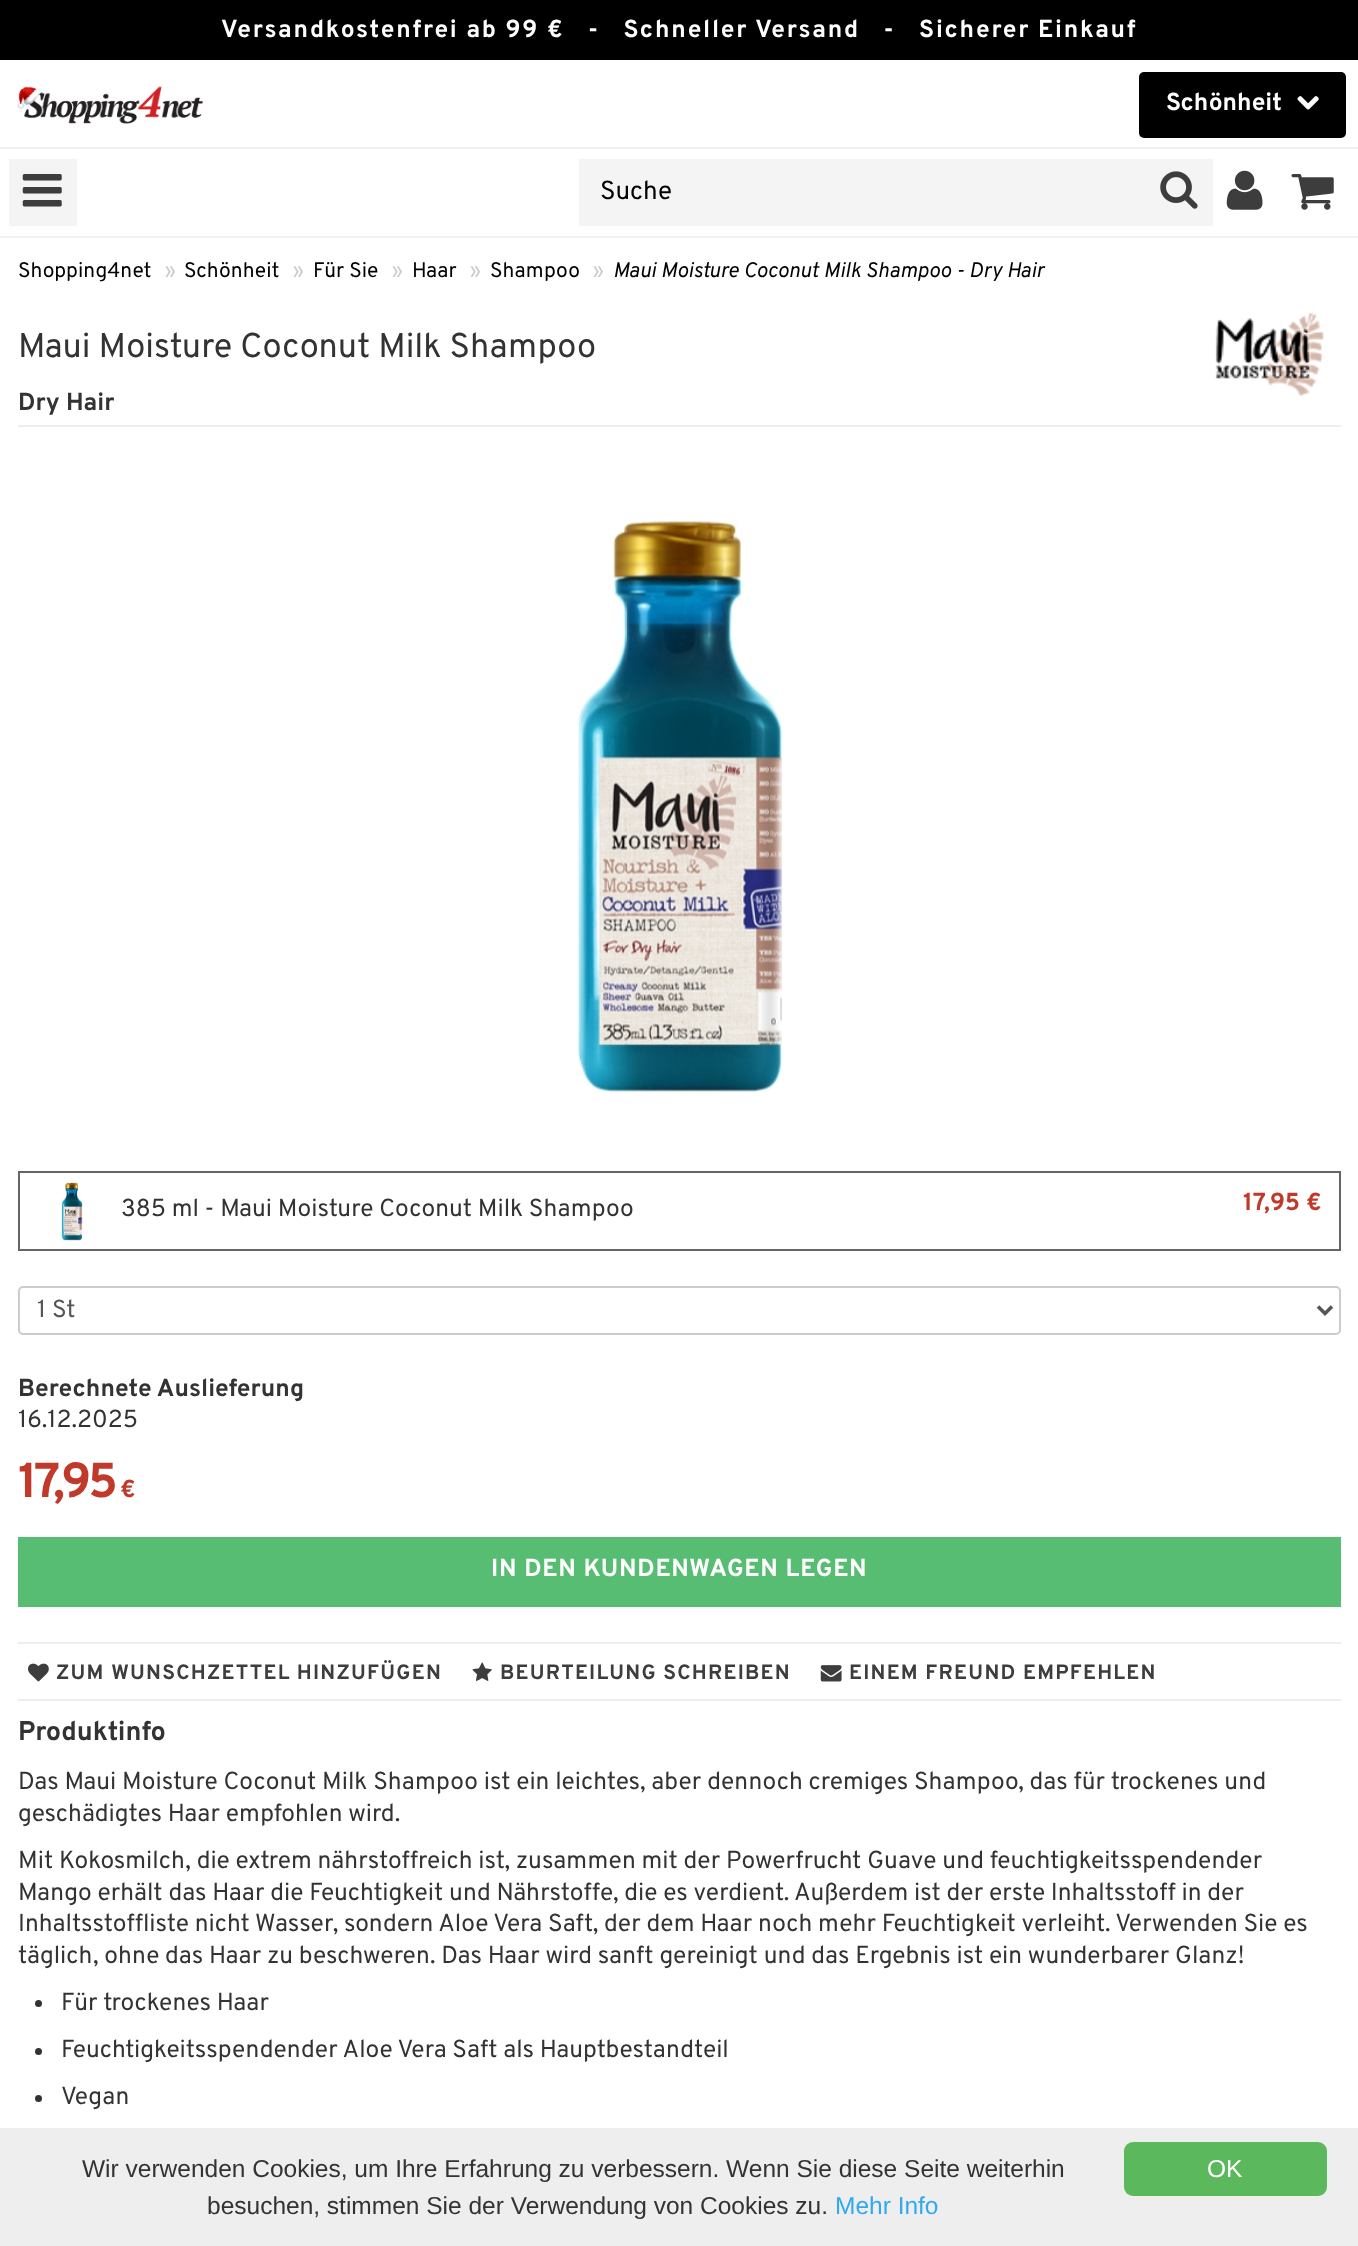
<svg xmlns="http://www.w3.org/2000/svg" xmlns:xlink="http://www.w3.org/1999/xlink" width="1358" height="2246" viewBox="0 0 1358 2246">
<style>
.cls-1{font:bold 24.5px Overpass;letter-spacing:1.75px;fill:#ffffff}
.cls-2{font:bold 24.5px Overpass;fill:#ffffff}
.cls-3{font:26px Overpass;fill:#000000}
.cls-4{font:21px Overpass;fill:#000000}
.cls-5{font:21px Overpass;fill:#cccccc}
.cls-6{font:italic 21px Overpass;fill:#000000}
.cls-7{font:34.25px Overpass;fill:#333333}
.cls-8{font:bold 24.5px Overpass;fill:#333333}
.cls-9{font:24.5px Overpass;fill:#333333}
.cls-10{font:bold 24.5px Overpass;fill:#c0392b}
.cls-11{font:24.5px Overpass;fill:#555555}
.cls-12{font:bold 49px Overpass;letter-spacing:-3.5px;fill:#c0392b}
.cls-13{font:bold 24.5px Overpass;letter-spacing:0.75px;fill:#ffffff}
.cls-14{font:bold 20.8px Overpass;letter-spacing:1.25px;fill:#3d3d3d}
.cls-15{font:bold 27px Overpass;fill:#333333}
.cls-16{font:24.5px Liberation Sans;fill:#333333}
.cls-17{font:24.5px Liberation Sans;fill:#31a8f0}
.cls-18{font:24.5px Liberation Sans;fill:#ffffff}
</style>
<rect width="100%" height="100%" fill="#ffffff"/>
<rect fill="#000000" x="0" y="0" width="1358" height="60"/>
<rect fill="#f1f1f1" x="0" y="147" width="1358" height="2"/>
<rect fill="#f1f1f1" x="0" y="236" width="1358" height="2"/>
<rect fill="#000000" x="1139" y="72" width="207" height="66" rx="5"/>
<image xlink:href="image0.png" x="1297" y="96" width="22" height="14"/>
<image xlink:href="image1.png" x="17" y="86" width="186" height="38"/>
<rect fill="#f4f4f4" x="9" y="159" width="68" height="67"/>
<image xlink:href="image2.png" x="22" y="174" width="40" height="33"/>
<rect fill="#f4f4f4" x="579" y="159" width="634" height="67"/>
<image xlink:href="image3.png" x="1160" y="171" width="38" height="38"/>
<image xlink:href="image4.png" x="1226" y="170" width="37" height="40"/>
<image xlink:href="image5.png" x="1291" y="174" width="43" height="36"/>
<rect fill="#eeeeee" x="18" y="425" width="1323" height="2"/>
<image xlink:href="image6.png" x="1215" y="312" width="109" height="84"/>
<image xlink:href="image7.png" x="577" y="520" width="206" height="573"/>
<rect fill="none" stroke="#666666" stroke-width="2" x="19" y="1172" width="1321" height="78"/>
<image xlink:href="image8.png" x="61" y="1182" width="22" height="59"/>
<rect fill="none" stroke="#cccccc" stroke-width="2" x="19" y="1287" width="1321" height="47" rx="4"/>
<path fill="none" stroke="#555555" stroke-width="3.5" d="M1318 1306.5L1325 1313.5L1332 1306.5"/>
<rect fill="#57bd72" x="18" y="1537" width="1323" height="70"/>
<rect fill="#eeeeee" x="18" y="1642" width="1323" height="2"/>
<rect fill="#eeeeee" x="18" y="1699" width="1323" height="2"/>
<image xlink:href="image9.png" x="28" y="1663" width="21" height="19"/>
<image xlink:href="image10.png" x="472" y="1662" width="20" height="19"/>
<image xlink:href="image11.png" x="820" y="1665" width="22" height="17"/>
<circle fill="#333333" cx="38.5" cy="2003.5" r="3.5"/>
<circle fill="#333333" cx="38.5" cy="2051.5" r="3.5"/>
<circle fill="#333333" cx="38.5" cy="2098.5" r="3.5"/>
<rect fill="#eeeeee" x="0" y="2128" width="1358" height="118"/>
<rect fill="#5cb85c" x="1124" y="2142" width="203" height="54" rx="9"/>
<text class="cls-1" x="221" y="37">Versandkostenfrei ab 99 €</text>
<text class="cls-1" xml:space="preserve" x="588" y="37">-   Schneller Versand   -   Sicherer Einkauf</text>
<text class="cls-2" x="1166" y="110">Schönheit</text>
<text class="cls-3" x="600" y="199">Suche</text>
<text class="cls-4" x="18" y="277">Shopping4net</text>
<text class="cls-5" x="165" y="277">»</text>
<text class="cls-4" x="184" y="277">Schönheit</text>
<text class="cls-5" x="293" y="277">»</text>
<text class="cls-4" x="313" y="277">Für Sie</text>
<text class="cls-5" x="392" y="277">»</text>
<text class="cls-4" x="412" y="277">Haar</text>
<text class="cls-5" x="470" y="277">»</text>
<text class="cls-4" x="490" y="277">Shampoo</text>
<text class="cls-5" x="593" y="277">»</text>
<text class="cls-6" x="613" y="277">Maui Moisture Coconut Milk Shampoo - Dry Hair</text>
<text class="cls-7" x="18" y="357">Maui Moisture Coconut Milk Shampoo</text>
<text class="cls-8" x="18" y="410">Dry Hair</text>
<text class="cls-9" x="121" y="1216">385 ml - Maui Moisture Coconut Milk Shampoo</text>
<text class="cls-10" x="1243" y="1210">17,95 €</text>
<text class="cls-11" x="37" y="1317">1 St</text>
<text class="cls-8" x="18" y="1396">Berechnete Auslieferung</text>
<text class="cls-9" x="18" y="1427">16.12.2025</text>
<text class="cls-12" x="18" y="1497">17,95</text>
<text class="cls-10" x="120" y="1497">€</text>
<text class="cls-13" x="491" y="1576">IN DEN KUNDENWAGEN LEGEN</text>
<text class="cls-14" x="56" y="1679">ZUM WUNSCHZETTEL HINZUFÜGEN</text>
<text class="cls-14" x="500" y="1679">BEURTEILUNG SCHREIBEN</text>
<text class="cls-14" x="849" y="1679">EINEM FREUND EMPFEHLEN</text>
<text class="cls-15" x="18" y="1740">Produktinfo</text>
<text class="cls-9"><tspan x="18" y="1789">Das Maui Moisture Coconut Milk Shampoo ist ein leichtes, aber dennoch cremiges Shampoo, das für trockenes und</tspan><tspan x="18" y="1821">geschädigtes Haar empfohlen wird.</tspan><tspan x="18" y="1868">Mit Kokosmilch, die extrem nährstoffreich ist, zusammen mit der Powerfrucht Guave und feuchtigkeitsspendender</tspan><tspan x="18" y="1900">Mango erhält das Haar die Feuchtigkeit und Nährstoffe, die es verdient. Außerdem ist der erste Inhaltsstoff in der</tspan><tspan x="18" y="1931">Inhaltsstoffliste nicht Wasser, sondern Aloe Vera Saft, der dem Haar noch mehr Feuchtigkeit verleiht. Verwenden Sie es</tspan><tspan x="18" y="1963">täglich, ohne das Haar zu beschweren. Das Haar wird sanft gereinigt und das Ergebnis ist ein wunderbarer Glanz!</tspan></text>
<text class="cls-9"><tspan x="61" y="2010">Für trockenes Haar</tspan><tspan x="61" y="2057">Feuchtigkeitsspendender Aloe Vera Saft als Hauptbestandteil</tspan><tspan x="61" y="2104">Vegan</tspan></text>
<text class="cls-16" x="82" y="2177">Wir verwenden Cookies, um Ihre Erfahrung zu verbessern. Wenn Sie diese Seite weiterhin</text>
<text class="cls-16" x="207" y="2214">besuchen, stimmen Sie der Verwendung von Cookies zu.</text>
<text class="cls-17" x="835" y="2214">Mehr Info</text>
<text class="cls-18" x="1207" y="2177">OK</text>
</svg>
